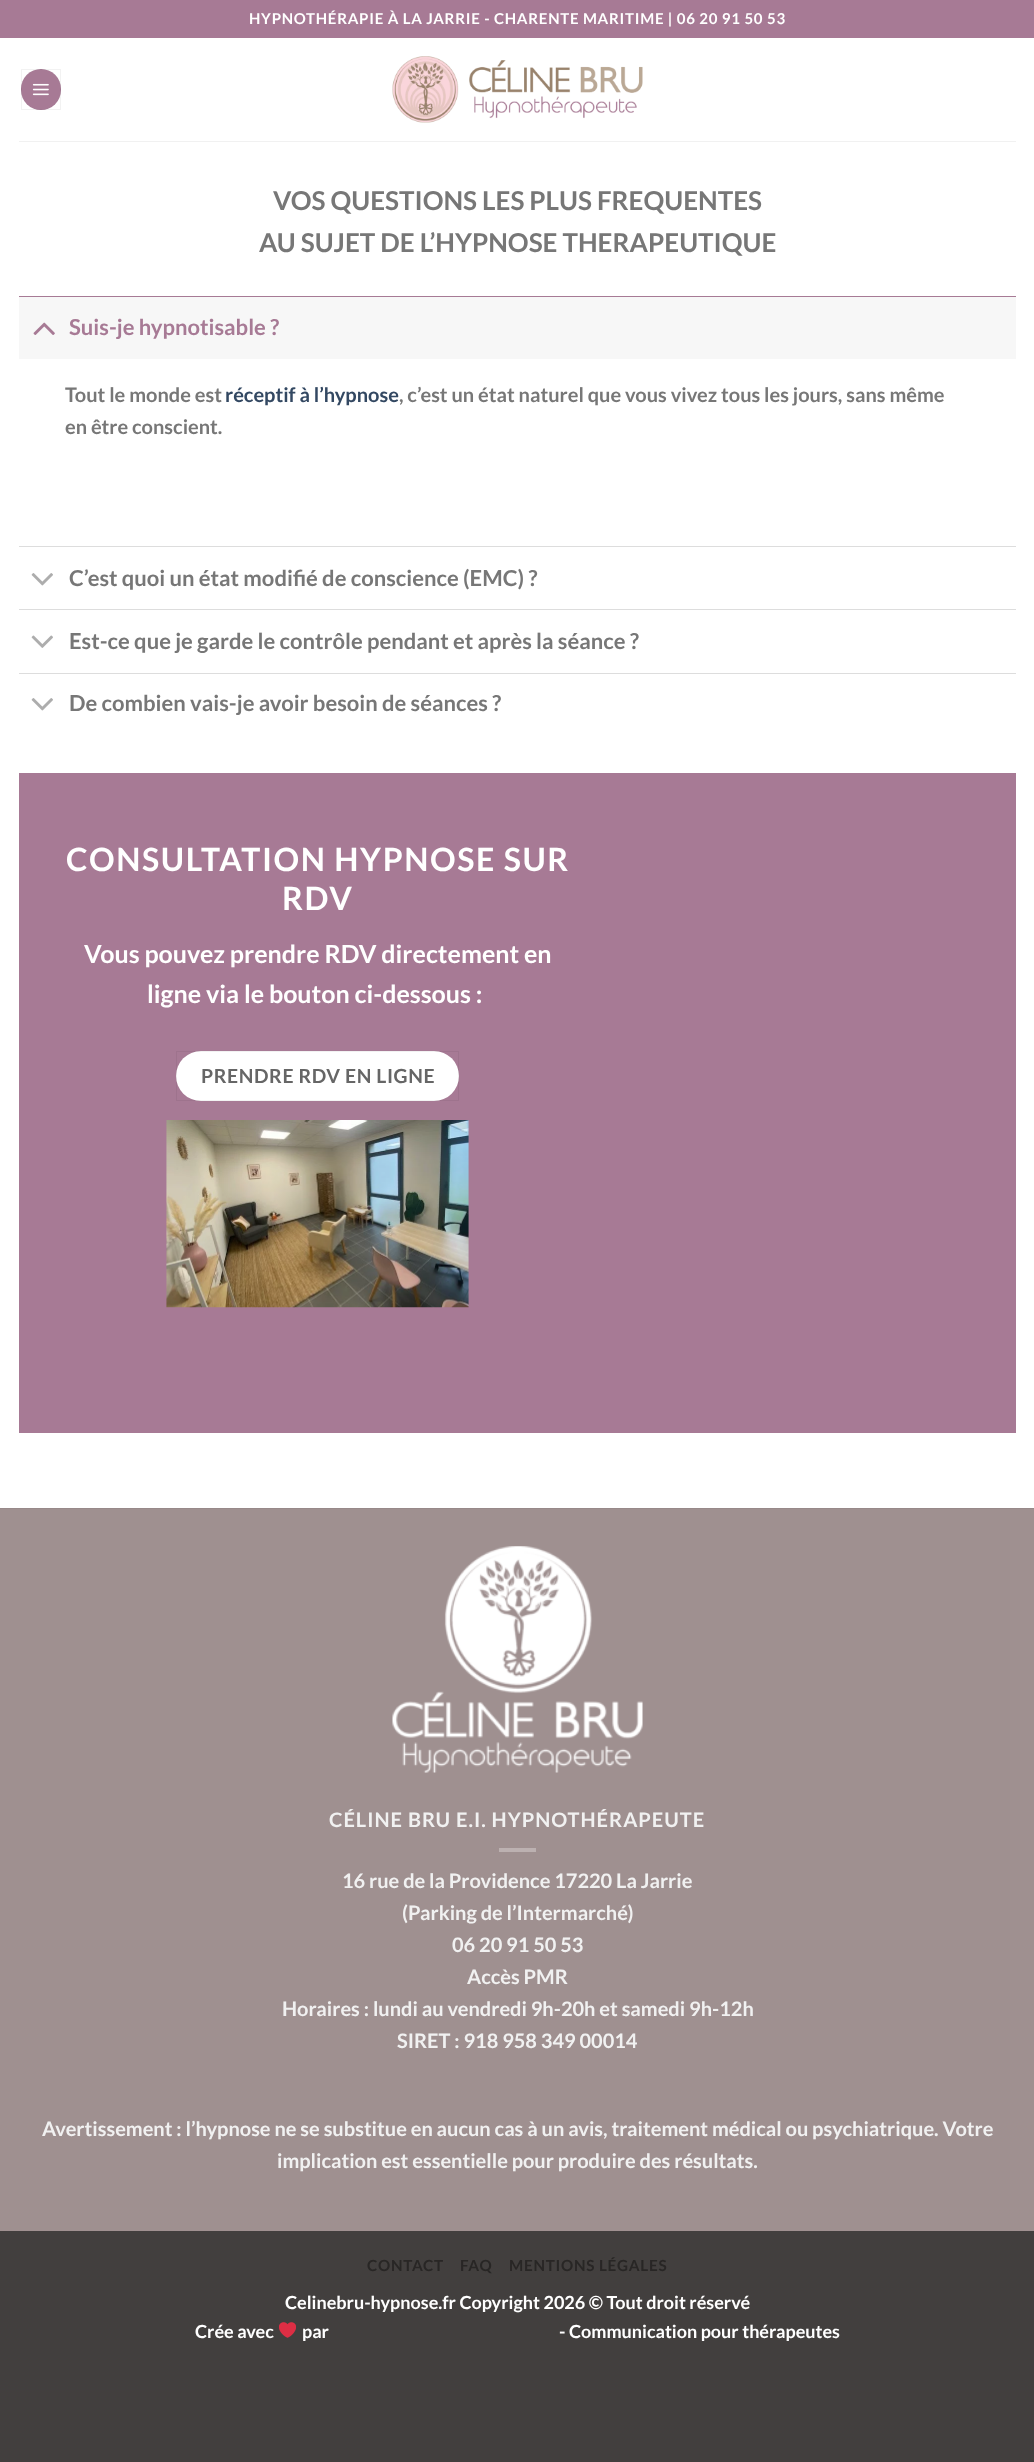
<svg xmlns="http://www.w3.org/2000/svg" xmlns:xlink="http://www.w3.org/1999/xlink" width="1034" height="2462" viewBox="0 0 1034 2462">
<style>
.cls-1{font:bold 15px Lato;letter-spacing:0.75px;fill:#ffffff}
.cls-2{font:bold 26px Lato;fill:#777777}
.cls-3{font:bold 22px Lato;fill:#a77a95}
.cls-4{font:bold 20px Lato;fill:#777777}
.cls-5{font:bold 20px Lato;fill:#334862}
.cls-6{font:bold 22px Lato;fill:#777777}
.cls-7{font:bold 32px Lato;letter-spacing:1.6px;fill:#ffffff}
.cls-8{font:bold 25px Lato;fill:#ffffff}
.cls-9{font:bold 19.4px Lato;letter-spacing:0.6px;fill:#666666}
.cls-10{font:bold 20px Lato;letter-spacing:1px;fill:#f1f1f1}
.cls-11{font:bold 20px Lato;fill:#f1f1f1}
.cls-12{font:bold 15.25px Lato;letter-spacing:0.75px;fill:#282625}
.cls-13{font:bold 18px Lato;fill:#ffffff}
</style>
<rect width="100%" height="100%" fill="#423f3e"/>
<rect fill="#ffffff" x="0" y="38" width="1034" height="1470"/>
<rect fill="#a77a95" x="0" y="0" width="1034" height="38"/>
<rect fill="#a77a95" x="21" y="69" width="40" height="41" rx="20"/>
<rect fill="none" stroke="#000000" stroke-opacity="0.05" x="21.5" y="69.5" width="39" height="40"/>
<image xlink:href="image0.png" x="32" y="83" width="17" height="13"/>
<image xlink:href="image1.png" x="392" y="56" width="251" height="67"/>
<rect fill="#f1f1f1" x="19" y="141" width="997" height="1"/>
<rect fill="#f7f7f7" x="19" y="297" width="997" height="62"/>
<rect fill="#a77a95" x="19" y="296" width="997" height="1"/>
<image xlink:href="image2.png" x="33" y="322" width="22" height="13"/>
<rect fill="#dddddd" x="19" y="546" width="997" height="1"/>
<image xlink:href="image3.png" x="31" y="573" width="22" height="13"/>
<rect fill="#dddddd" x="19" y="609" width="997" height="1"/>
<image xlink:href="image4.png" x="31" y="635" width="22" height="13"/>
<rect fill="#dddddd" x="19" y="673" width="997" height="1"/>
<image xlink:href="image3.png" x="31" y="698" width="22" height="13"/>
<rect fill="#a77a95" x="19" y="773" width="997" height="660"/>
<rect fill="#ffffff" x="176" y="1051" width="283" height="50" rx="25"/>
<rect fill="none" stroke="#000000" stroke-opacity="0.05" x="176.5" y="1051.5" width="282" height="49"/>
<image xlink:href="image5.png" x="166" y="1120" width="303" height="188"/>
<rect fill="#9f9090" x="0" y="1509" width="1034" height="722"/>
<rect fill="#978989" x="0" y="1508" width="1034" height="1"/>
<image xlink:href="image6.png" x="392" y="1546" width="251" height="227"/>
<rect fill="#bcb1b1" x="499" y="1848" width="37" height="4"/>
<image xlink:href="image7.png" x="279" y="2322" width="17" height="16"/>
<text class="cls-1" x="249" y="24">HYPNOTHÉRAPIE À LA JARRIE - CHARENTE MARITIME | 06 20 91 50 53</text>
<text class="cls-2" x="273" y="210">VOS QUESTIONS LES PLUS FREQUENTES</text>
<text class="cls-2" x="259" y="252">AU SUJET DE L’HYPNOSE THERAPEUTIQUE</text>
<text class="cls-3" x="69" y="335">Suis-je hypnotisable ?</text>
<text class="cls-4" x="65" y="402">Tout le monde est</text>
<text class="cls-5" x="225" y="402">réceptif à l’hypnose</text>
<text class="cls-4" x="399" y="402">, c’est un état naturel que vous vivez tous les jours, sans même</text>
<text class="cls-4" x="65" y="434">en être conscient.</text>
<text class="cls-6" x="69" y="586">C’est quoi un état modifié de conscience (EMC) ?</text>
<text class="cls-6" x="69" y="649">Est-ce que je garde le contrôle pendant et après la séance ?</text>
<text class="cls-6" x="69" y="711">De combien vais-je avoir besoin de séances ?</text>
<text class="cls-7" x="66" y="871">CONSULTATION HYPNOSE SUR</text>
<text class="cls-7" x="282" y="910">RDV</text>
<text class="cls-8" x="84" y="963">Vous pouvez prendre RDV directement en</text>
<text class="cls-8" x="147" y="1003">ligne via le bouton ci-dessous :</text>
<text class="cls-9" x="201" y="1083">PRENDRE RDV EN LIGNE</text>
<text class="cls-10" x="329" y="1827">CÉLINE BRU E.I. HYPNOTHÉRAPEUTE</text>
<text class="cls-11" x="342" y="1888">16 rue de la Providence 17220 La Jarrie</text>
<text class="cls-11" x="402" y="1920">(Parking de l’Intermarché)</text>
<text class="cls-11" x="452" y="1952">06 20 91 50 53</text>
<text class="cls-11" x="467" y="1984">Accès PMR</text>
<text class="cls-11" x="282" y="2016">Horaires : lundi au vendredi 9h-20h et samedi 9h-12h</text>
<text class="cls-11" x="397" y="2048">SIRET : 918 958 349 00014</text>
<text class="cls-11" x="42" y="2136">Avertissement : l’hypnose ne se substitue en aucun cas à un avis, traitement médical ou psychiatrique. Votre</text>
<text class="cls-11" x="277" y="2168">implication est essentielle pour produire des résultats.</text>
<text class="cls-12" x="367" y="2271">CONTACT</text>
<text class="cls-12" x="460" y="2271">FAQ</text>
<text class="cls-12" x="509" y="2271">MENTIONS LÉGALES</text>
<text class="cls-13" x="285" y="2309">Celinebru-hypnose.fr Copyright 2026 © Tout droit réservé</text>
<text class="cls-13" x="195" y="2338">Crée avec</text>
<text class="cls-13" x="302" y="2338">par</text>
<text class="cls-13" x="559" y="2338">- Communication pour thérapeutes</text>
</svg>
